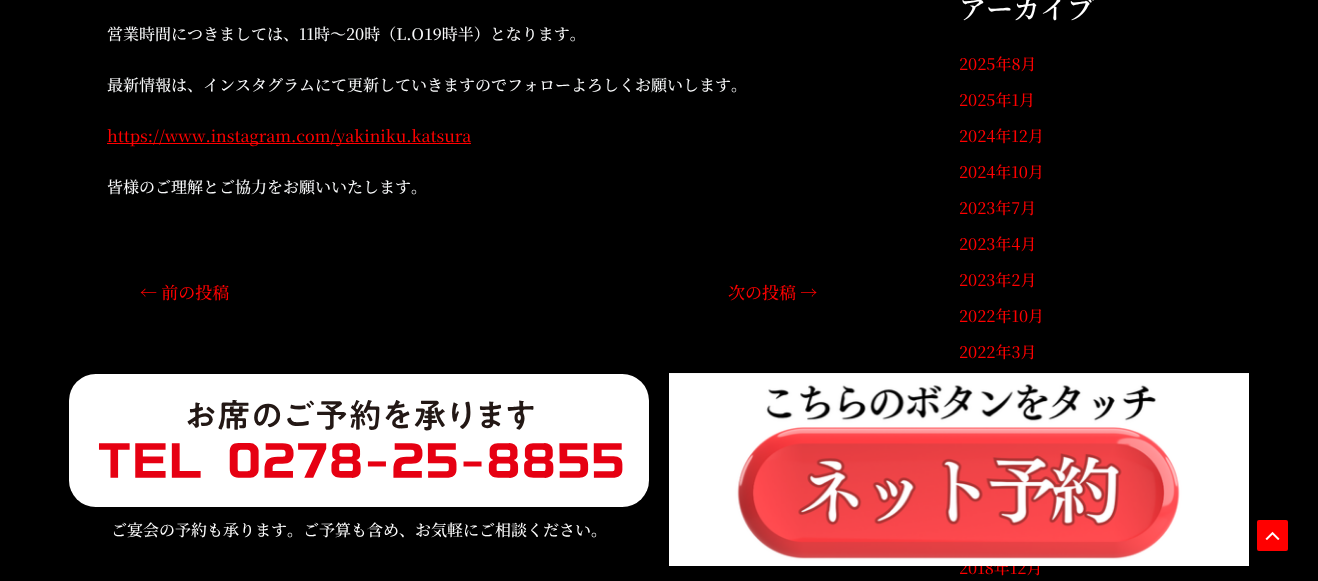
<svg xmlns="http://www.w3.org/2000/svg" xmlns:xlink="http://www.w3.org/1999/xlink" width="1318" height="581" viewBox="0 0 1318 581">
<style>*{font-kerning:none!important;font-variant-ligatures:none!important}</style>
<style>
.cls-1{font:500 16px Noto Serif JP;fill:#f9fafb}
.cls-2{font:500 16px Noto Serif JP;fill:#ff0000}
.cls-3{font:500 17px Noto Serif JP;fill:#ff0000}
.cls-4{font:600 27px Noto Serif JP;fill:#ffffff}
.cls-5{font:500 16px Noto Serif JP;fill:#ffffff}
</style>
<rect width="100%" height="100%" fill="#000000"/>
<rect fill="#ff0000" x="107" y="143" width="364" height="1"/>
<image xlink:href="image0.png" x="69" y="374" width="580" height="133"/>
<rect fill="#ff0000" x="1257" y="520" width="31" height="31" rx="2"/>
<image xlink:href="image2.png" x="1265" y="531" width="15" height="9"/>
<text class="cls-1" x="107" y="40">営業時間につきましては、11時～20時（L.O19時半）となります。</text>
<text class="cls-1" x="107" y="91">最新情報は、インスタグラムにて更新していきますのでフォローよろしくお願いします。</text>
<text class="cls-2" x="107" y="142">https://www.instagram.com/yakiniku.katsura</text>
<text class="cls-1" x="107" y="193">皆様のご理解とご協力をお願いいたします。</text>
<text class="cls-3" x="140" y="299">← 前の投稿</text>
<text class="cls-3" x="728" y="299">次の投稿 →</text>
<text class="cls-4" x="959" y="19">アーカイブ</text>
<text class="cls-2" x="959" y="70">2025年8月</text>
<text class="cls-2" x="959" y="106">2025年1月</text>
<text class="cls-2" x="959" y="142">2024年12月</text>
<text class="cls-2" x="959" y="178">2024年10月</text>
<text class="cls-2" x="959" y="214">2023年7月</text>
<text class="cls-2" x="959" y="250">2023年4月</text>
<text class="cls-2" x="959" y="286">2023年2月</text>
<text class="cls-2" x="959" y="322">2022年10月</text>
<text class="cls-2" x="959" y="358">2022年3月</text>
<text class="cls-2" x="959" y="574">2018年12月</text>
<text class="cls-5" x="111" y="536">ご宴会の予約も承ります。ご予算も含め、お気軽にご相談ください。</text>
<image xlink:href="image1.png" x="669" y="373" width="580" height="193"/>
</svg>
